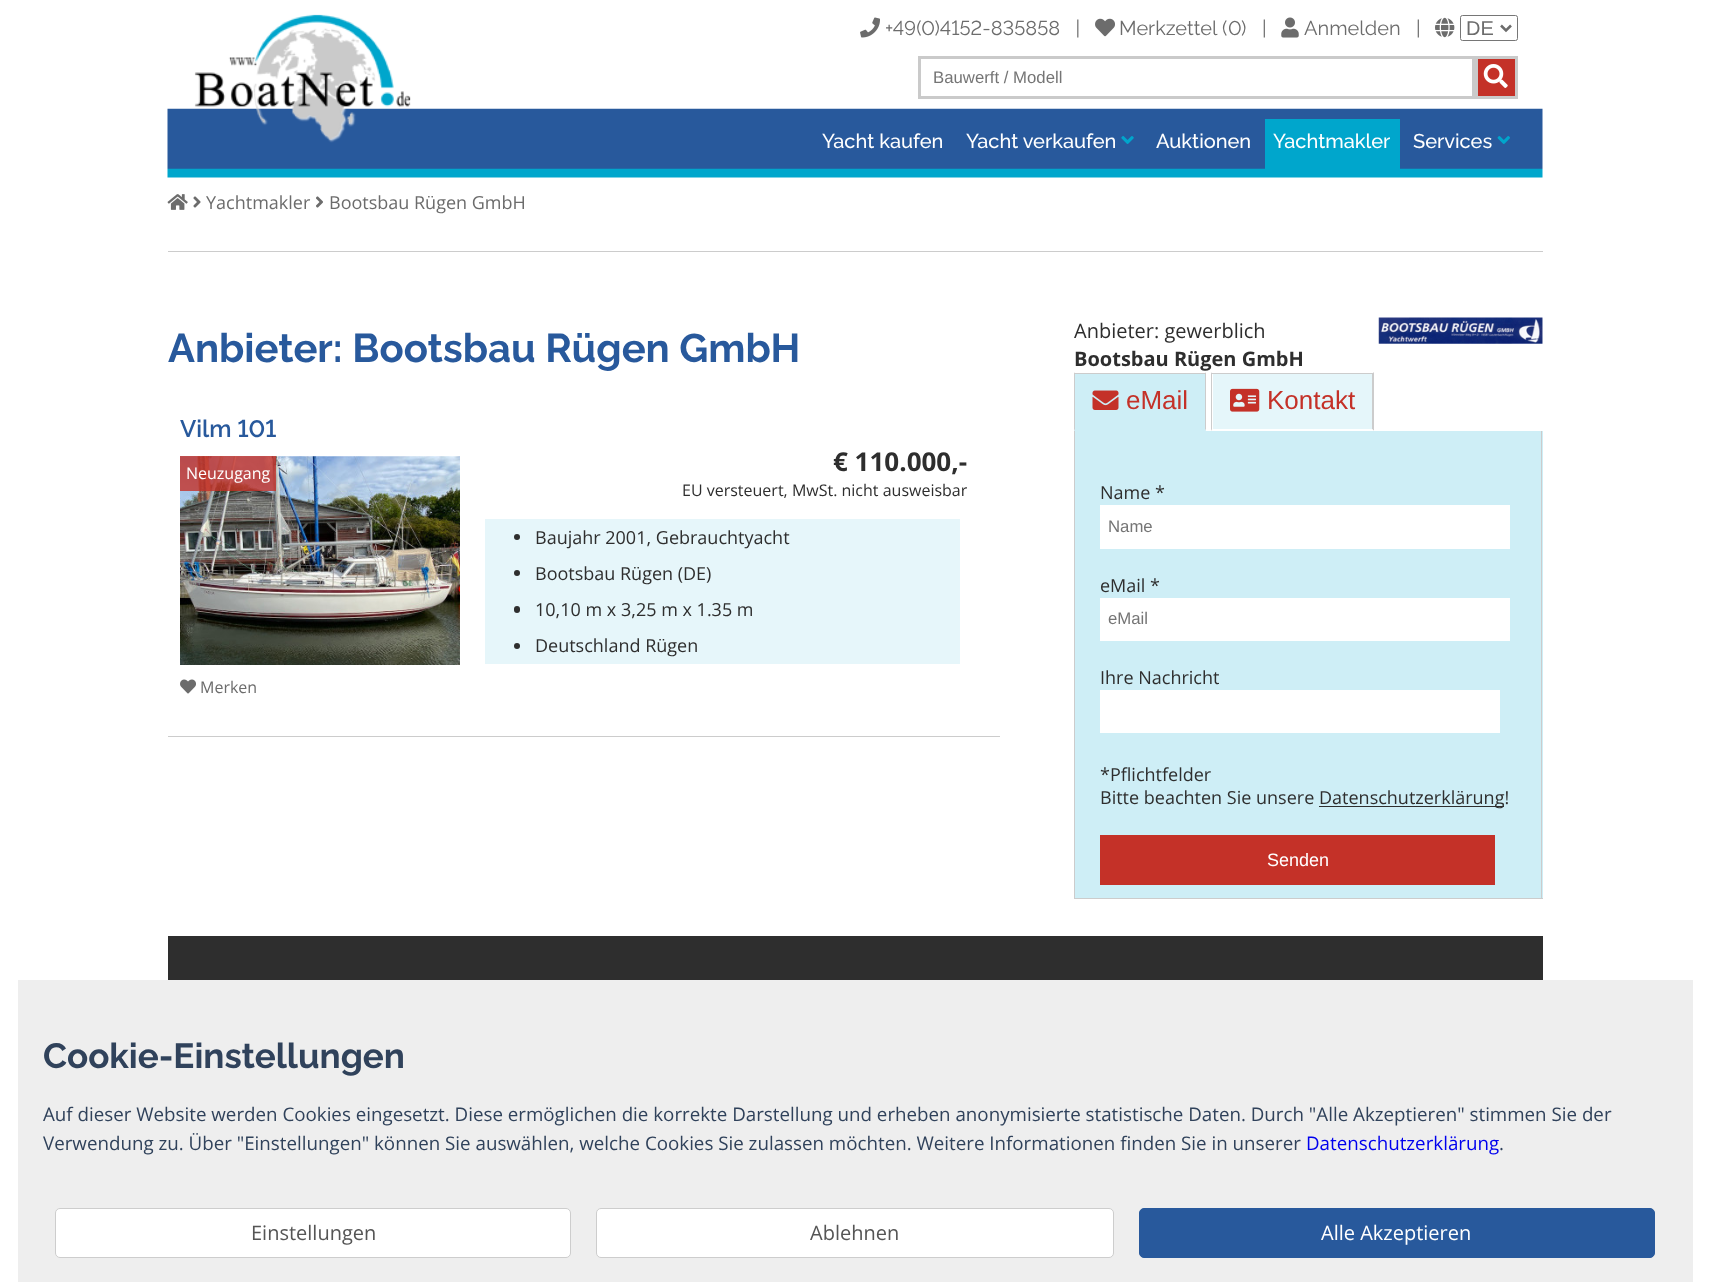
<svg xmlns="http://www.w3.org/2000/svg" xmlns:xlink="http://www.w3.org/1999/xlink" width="1710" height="1282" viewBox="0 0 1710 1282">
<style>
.cls-1{font:20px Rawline;fill:#6c6c6c}
.cls-2{font:20px Liberation Sans;fill:#6c6c6c}
.cls-3{font:16.75px Liberation Sans;fill:#757575}
.cls-4{font:500 20px Rawline;fill:#ffffff}
.cls-5{font:18px Open Sans;fill:#6c6c6c}
.cls-6{font:bold 40px Rawline;fill:#28599c}
.cls-7{font:600 24px Rawline;fill:#28599c}
.cls-8{font:16px Open Sans;fill:#ffffff}
.cls-9{font:16px Open Sans;fill:#6c6c6c}
.cls-10{font:bold 26px Open Sans;fill:#2e2e2e}
.cls-11{font:16px Open Sans;fill:#2e2e2e}
.cls-12{font:18px Open Sans;fill:#2e2e2e}
.cls-13{font:20px Open Sans;fill:#2e2e2e}
.cls-14{font:bold 20px Open Sans;fill:#2e2e2e}
.cls-15{font:26px Liberation Sans;fill:#c43128}
.cls-16{font:18px Liberation Sans;fill:#ffffff}
.cls-17{font:bold 35px Rawline;fill:#30425b}
.cls-18{font:18.75px Open Sans;fill:#30425b}
.cls-19{font:18.75px Open Sans;fill:#0000ee}
.cls-20{font:20px Open Sans;fill:#555555}
.cls-21{font:20px Open Sans;fill:#ffffff}
</style>
<rect width="100%" height="100%" fill="#ffffff"/>
<image xlink:href="image0.png" x="167" y="108" width="1376" height="70"/>
<image xlink:href="image1.png" x="194" y="14" width="217" height="129"/>
<image xlink:href="image2.png" x="860" y="17" width="20" height="21"/>
<image xlink:href="image3.png" x="1095" y="18" width="20" height="19"/>
<image xlink:href="image4.png" x="1281" y="17" width="18" height="21"/>
<image xlink:href="image5.png" x="1435" y="17" width="20" height="21"/>
<rect fill="none" stroke="#767676" x="1460.5" y="15.5" width="57" height="25" rx="2"/>
<path fill="none" stroke="#6c6c6c" stroke-width="2.5" d="M1501 25.5L1506 30.5L1511 25.5"/>
<rect fill="none" stroke="#cacaca" stroke-width="3" x="919.5" y="57.5" width="554" height="40"/>
<rect fill="#c43128" stroke="#cacaca" stroke-width="3" x="1476.5" y="57.5" width="40" height="40"/>
<image xlink:href="image6.png" x="1483" y="64" width="25" height="24"/>
<image xlink:href="image7.png" x="1121" y="136" width="13" height="8"/>
<rect fill="#00a6cc" x="1265" y="119" width="135" height="50"/>
<image xlink:href="image8.png" x="1497" y="136" width="13" height="8"/>
<image xlink:href="image9.png" x="167" y="194" width="21" height="16"/>
<image xlink:href="image10.png" x="193" y="196" width="8" height="12"/>
<image xlink:href="image11.png" x="316" y="196" width="7" height="12"/>
<rect fill="#cccccc" x="168" y="251" width="1375" height="1"/>
<image xlink:href="image12.png" x="180" y="456" width="280" height="209"/>
<rect fill="#c43128" fill-opacity="0.8" x="180" y="456" width="96" height="35"/>
<image xlink:href="image13.png" x="180" y="679" width="16" height="15"/>
<rect fill="#e6f6fa" x="485" y="519" width="475" height="145"/>
<circle fill="#2e2e2e" cx="517" cy="537" r="3"/>
<circle fill="#2e2e2e" cx="517" cy="573" r="3"/>
<rect fill="#2e2e2e" x="514" y="606" width="6" height="7" rx="3"/>
<circle fill="#2e2e2e" cx="517" cy="646" r="3"/>
<rect fill="#cccccc" x="168" y="736" width="832" height="1"/>
<image xlink:href="image14.png" x="1378" y="317" width="165" height="27"/>
<rect fill="#ceeef6" x="1075" y="374" width="130" height="55"/>
<rect fill="#cccccc" x="1074" y="373" width="132" height="1"/>
<path fill="#cccccc" d="M1206 372V431L1205 429V374Z"/>
<path fill="#ceeef6" d="M1206 431H1074L1075 429H1205Z"/>
<path fill="#cccccc" d="M1074 431V372L1075 374V429Z"/>
<image xlink:href="image15.png" x="1092" y="390" width="27" height="20"/>
<rect fill="#e5f6fa" x="1213" y="374" width="159" height="55"/>
<rect fill="#cccccc" x="1211" y="373" width="163" height="1"/>
<path fill="#cccccc" d="M1374 372V431L1372 429V374Z"/>
<path fill="#ffffff" d="M1374 431H1211L1212 429H1372Z"/>
<path fill="#cccccc" d="M1211 431V372L1212 374V429Z"/>
<image xlink:href="image16.png" x="1230" y="388" width="30" height="24"/>
<rect fill="#ceeef6" x="1075" y="431" width="468" height="467"/>
<rect fill="#cccccc" x="1541" y="431" width="1" height="468"/>
<rect fill="#cccccc" x="1074" y="898" width="469" height="1"/>
<rect fill="#cccccc" x="1074" y="431" width="1" height="468"/>
<rect fill="#ffffff" x="1100" y="505" width="410" height="44"/>
<rect fill="#ffffff" x="1100" y="598" width="410" height="43"/>
<rect fill="#ffffff" x="1100" y="690" width="400" height="43"/>
<rect fill="#2e2e2e" x="1319" y="806" width="185" height="1"/>
<rect fill="#c43128" x="1100" y="835" width="395" height="50"/>
<rect fill="#2e2e2e" x="168" y="936" width="1375" height="44"/>
<rect fill="#eeeeee" x="18" y="980" width="1675" height="302"/>
<rect fill="#ffffff" stroke="#cdcdcd" x="55.5" y="1208.5" width="515" height="49" rx="4.5"/>
<rect fill="#ffffff" stroke="#cdcdcd" x="596.5" y="1208.5" width="517" height="49" rx="4.5"/>
<rect fill="#28599c" stroke="#28599c" x="1139.5" y="1208.5" width="515" height="49" rx="4.5"/>
<text class="cls-1" xml:space="preserve" x="885" y="35">+49(0)4152-835858   |</text>
<text class="cls-1" x="1119" y="35">Merkzettel (</text>
<text class="cls-1" x="1228" y="35">0</text>
<text class="cls-1" x="1241" y="35">)</text>
<text class="cls-1" x="1262" y="35">|</text>
<text class="cls-1" x="1304" y="35">Anmelden</text>
<text class="cls-1" x="1416" y="35">|</text>
<text class="cls-2" x="1466" y="35">DE</text>
<text class="cls-3" x="933" y="83">Bauwerft / Modell</text>
<text class="cls-4" x="822" y="148">Yacht kaufen</text>
<text class="cls-4" x="966" y="148">Yacht verkaufen</text>
<text class="cls-4" x="1156" y="148">Auktionen</text>
<text class="cls-4" x="1273" y="148">Yachtmakler</text>
<text class="cls-4" x="1413" y="148">Services</text>
<text class="cls-5" x="206" y="209">Yachtmakler</text>
<text class="cls-5" x="329" y="209">Bootsbau Rügen GmbH</text>
<text class="cls-6" x="168" y="362">Anbieter: Bootsbau Rügen GmbH</text>
<text class="cls-7" x="180" y="437">Vilm 101</text>
<text class="cls-8" x="186" y="479">Neuzugang</text>
<text class="cls-9" x="200" y="693">Merken</text>
<text class="cls-10" x="833" y="471">€ 110.000,-</text>
<text class="cls-11" x="682" y="496">EU versteuert, MwSt. nicht ausweisbar</text>
<text class="cls-12" x="535" y="544">Baujahr 2001, Gebrauchtyacht</text>
<text class="cls-12" x="535" y="580">Bootsbau Rügen (DE)</text>
<text class="cls-12" x="535" y="616">10,10 m x 3,25 m x 1.35 m</text>
<text class="cls-12" x="535" y="652">Deutschland Rügen</text>
<text class="cls-13" x="1074" y="338">Anbieter: gewerblich</text>
<text class="cls-14" x="1074" y="366">Bootsbau Rügen GmbH</text>
<text class="cls-15" x="1126" y="409">eMail</text>
<text class="cls-15" x="1267" y="409">Kontakt</text>
<text class="cls-12" x="1100" y="499">Name *</text>
<text class="cls-3" x="1108" y="532">Name</text>
<text class="cls-12" x="1100" y="592">eMail *</text>
<text class="cls-3" x="1108" y="624">eMail</text>
<text class="cls-12" x="1100" y="684">Ihre Nachricht</text>
<text class="cls-12"><tspan x="1100" y="781">*Pflichtfelder</tspan><tspan x="1100" y="804">Bitte beachten Sie unsere</tspan></text>
<text class="cls-12" x="1319" y="804">Datenschutzerklärung!</text>
<text class="cls-16" x="1267" y="866">Senden</text>
<text class="cls-17" x="43" y="1068">Cookie-Einstellungen</text>
<text class="cls-18"><tspan x="43" y="1121">Auf dieser Website werden Cookies eingesetzt. Diese ermöglichen die korrekte Darstellung und erheben anonymisierte statistische Daten. Durch "Alle Akzeptieren" stimmen Sie der</tspan><tspan x="43" y="1150">Verwendung zu. Über "Einstellungen" können Sie auswählen, welche Cookies Sie zulassen möchten. Weitere Informationen finden Sie in unserer</tspan></text>
<text class="cls-19" x="1306" y="1150">Datenschutzerklärung</text>
<text class="cls-18" x="1499" y="1150">.</text>
<text class="cls-20" x="251" y="1240">Einstellungen</text>
<text class="cls-20" x="810" y="1240">Ablehnen</text>
<text class="cls-21" x="1321" y="1240">Alle Akzeptieren</text>
</svg>
